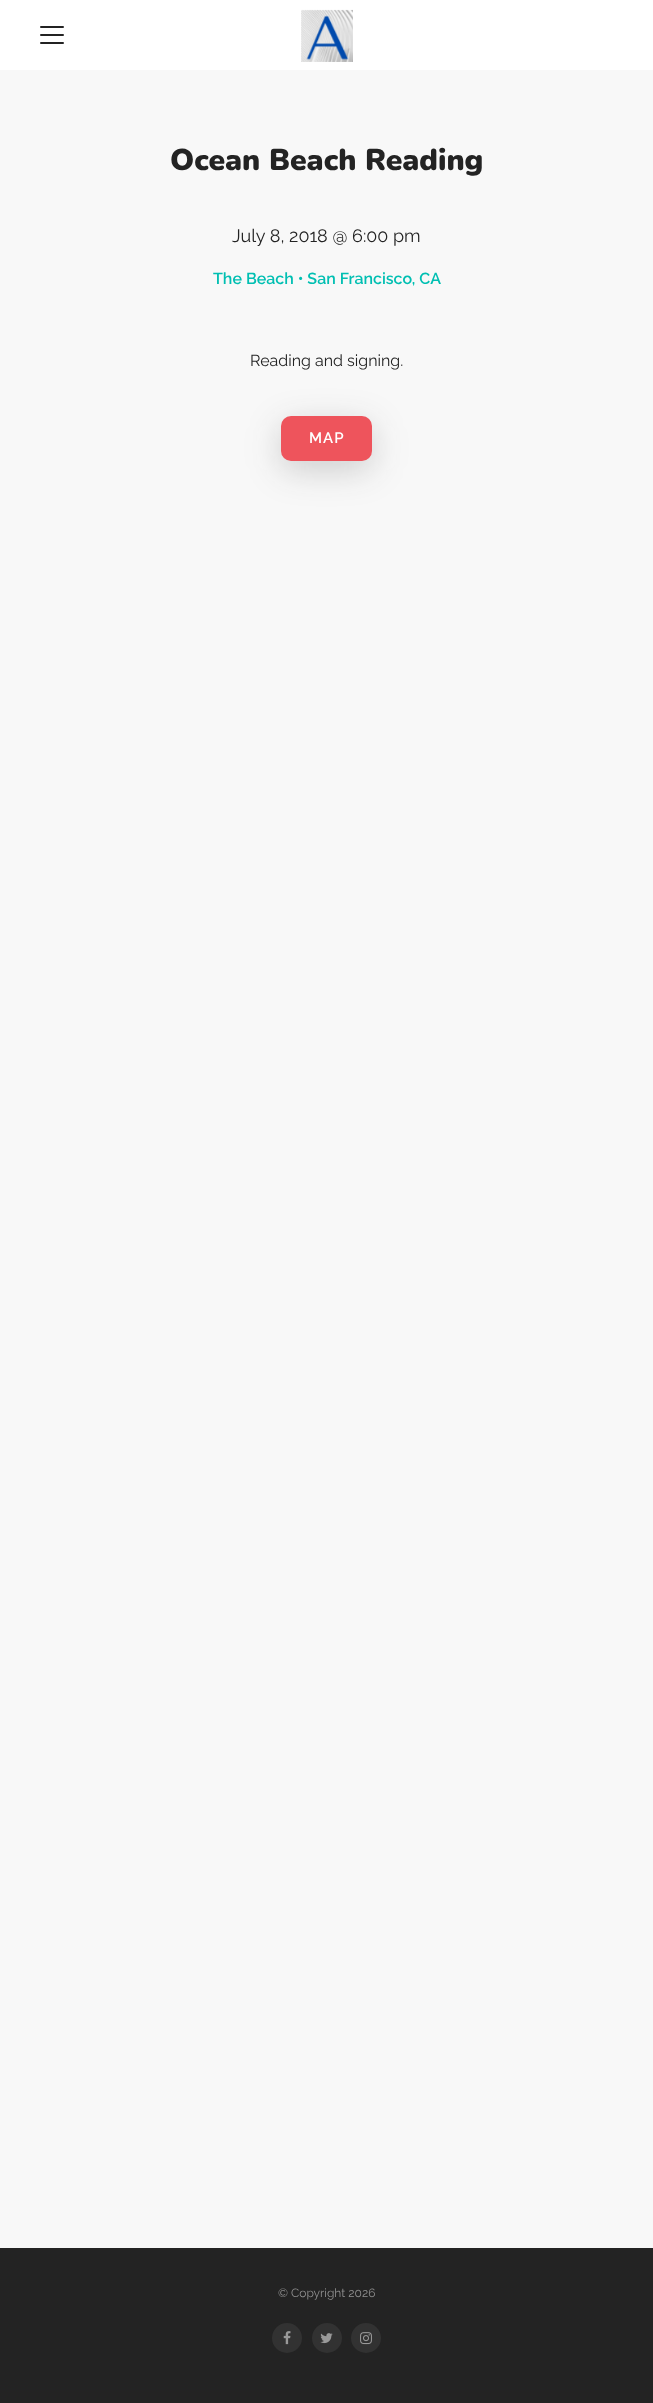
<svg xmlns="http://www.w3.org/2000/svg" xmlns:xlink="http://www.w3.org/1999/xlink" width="653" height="2403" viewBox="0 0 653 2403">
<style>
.cls-1{font:900 30px Nunito;fill:#232323}
.cls-2{font:18px Raleway;fill:#232323}
.cls-3{font:600 16px Raleway;fill:#00bfb2}
.cls-4{font:16px Raleway;fill:#232323}
.cls-5{font:600 15px Raleway;letter-spacing:1px;fill:#ffffff}
.cls-6{font:12px Raleway;fill:#919191}
</style>
<rect width="100%" height="100%" fill="#f8f8f8"/>
<rect fill="#232323" fill-opacity="0.2" filter="blur(0.5px)" x="0" y="0" width="653" height="70"/>
<rect fill="#ffffff" x="0" y="0" width="653" height="70"/>
<rect fill="#232323" x="40" y="34" width="24" height="2" rx="1"/>
<rect fill="#232323" x="40" y="26" width="24" height="2" rx="1"/>
<rect fill="#232323" x="40" y="42" width="24" height="2" rx="1"/>
<image xlink:href="image0.png" x="301" y="9" width="52" height="53"/>
<rect fill="#232323" fill-opacity="0.2" filter="blur(17.5px)" x="281" y="425" width="91" height="45" rx="10"/>
<rect fill="#ee545c" x="281" y="416" width="91" height="45" rx="10"/>
<rect fill="#232323" x="0" y="2248" width="653" height="155"/>
<circle fill="#323232" cx="287" cy="2338" r="15"/>
<image xlink:href="image1.png" x="283" y="2331" width="8" height="14"/>
<circle fill="#323232" cx="327" cy="2338" r="15"/>
<image xlink:href="image2.png" x="320" y="2333" width="13" height="11"/>
<circle fill="#323232" cx="366" cy="2338" r="15"/>
<image xlink:href="image3.png" x="360" y="2332" width="12" height="13"/>
<text class="cls-1" x="170" y="170">Ocean Beach Reading</text>
<text class="cls-2" x="232" y="242">July 8, 2018 @ 6:00 pm</text>
<text class="cls-3" x="213" y="284">The Beach • San Francisco, CA</text>
<text class="cls-4" x="250" y="366">Reading and signing.</text>
<text class="cls-5" x="309" y="443">MAP</text>
<text class="cls-6" x="278" y="2297">© Copyright 2026</text>
</svg>
